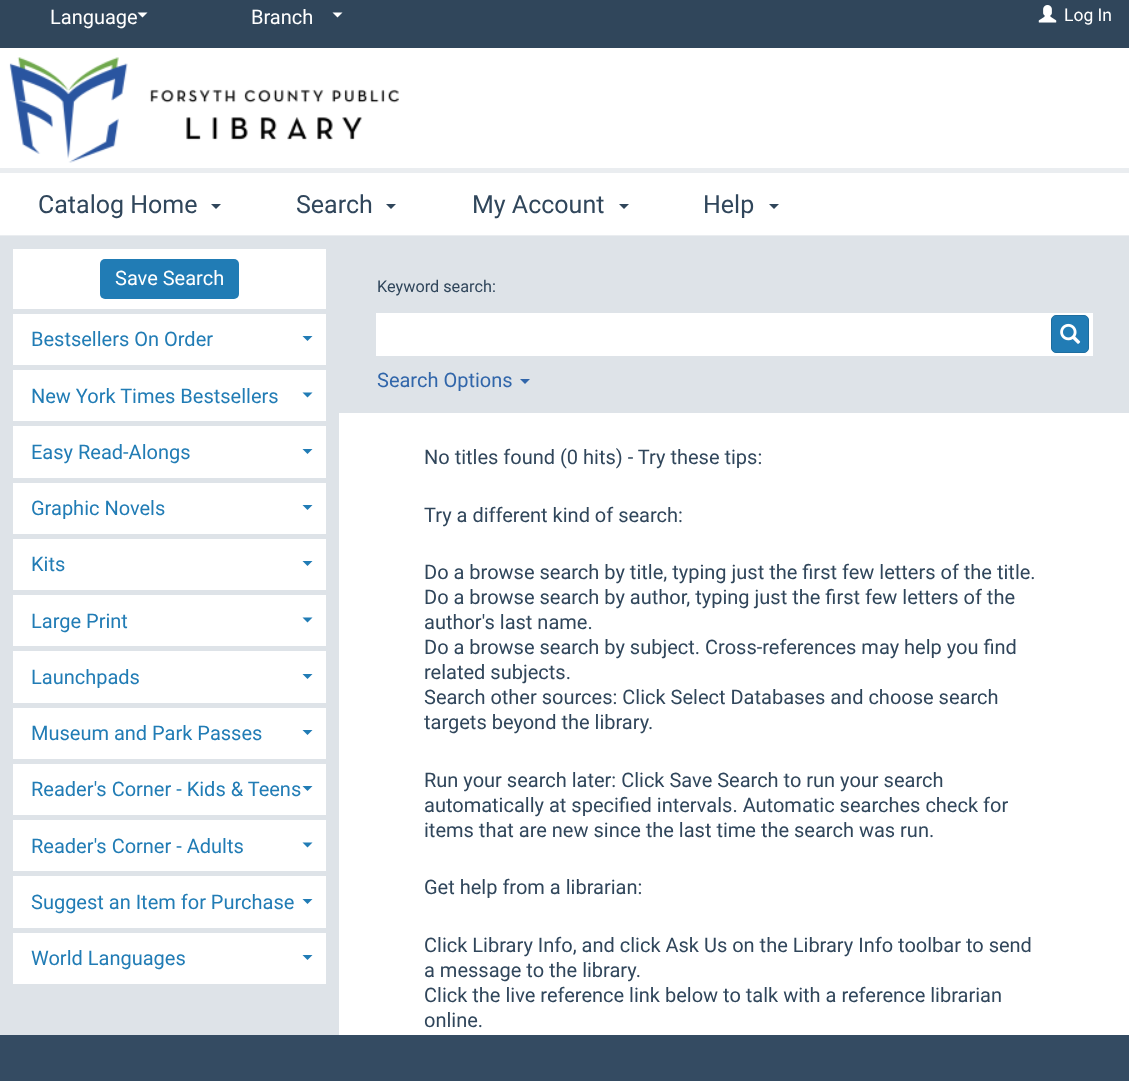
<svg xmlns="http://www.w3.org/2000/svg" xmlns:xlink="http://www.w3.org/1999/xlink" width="1129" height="1081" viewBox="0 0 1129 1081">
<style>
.cls-1{font:20px Roboto;fill:#ffffff}
.cls-2{font:25px Roboto;fill:#30465b}
.cls-3{font:17.5px Roboto;fill:#ffffff}
.cls-4{font:20px Roboto;fill:#217cb5}
.cls-5{font:16.25px Roboto;fill:#30465b}
.cls-6{font:20px Roboto;fill:#3166aa}
.cls-7{font:20px Roboto;fill:#30465b}
</style>
<rect width="100%" height="100%" fill="#30465b"/>
<rect fill="#eaedf0" x="0" y="235" width="1129" height="1"/>
<path fill="#ffffff" d="M137.5 12.5H147.5L142.5 17.5Z"/>
<path fill="#ffffff" d="M332.5 12.5H342.5L337.5 17.5Z"/>
<rect fill="#ffffff" x="0" y="173" width="1129" height="62"/>
<rect fill="#eaedf0" x="0" y="168" width="1129" height="5"/>
<path fill="#30465b" d="M211 204H221L216 209Z"/>
<path fill="#30465b" d="M386 204H396L391 209Z"/>
<path fill="#30465b" d="M619 204H629L624 209Z"/>
<path fill="#30465b" d="M769 204H779L774 209Z"/>
<image xlink:href="image0.png" x="1038" y="5" width="19" height="18"/>
<rect fill="#ffffff" x="0" y="48" width="1129" height="120"/>
<image xlink:href="image1.png" x="9" y="57" width="390" height="106"/>
<rect fill="#dee3e8" x="0" y="236" width="339" height="799"/>
<rect fill="#ffffff" x="13" y="249" width="313" height="60"/>
<rect fill="#217cb5" x="100" y="259" width="139" height="40" rx="5"/>
<rect fill="#ffffff" x="13" y="314" width="313" height="51"/>
<path fill="#217cb5" d="M302.5 336H312.5L307.5 341Z"/>
<rect fill="#ffffff" x="13" y="370" width="313" height="51"/>
<path fill="#217cb5" d="M302.5 392.5H312.5L307.5 397.5Z"/>
<rect fill="#ffffff" x="13" y="426" width="313" height="52"/>
<path fill="#217cb5" d="M302.5 449H312.5L307.5 454Z"/>
<rect fill="#ffffff" x="13" y="483" width="313" height="51"/>
<path fill="#217cb5" d="M302.5 505H312.5L307.5 510Z"/>
<rect fill="#ffffff" x="13" y="539" width="313" height="51"/>
<path fill="#217cb5" d="M302.5 561H312.5L307.5 566Z"/>
<rect fill="#ffffff" x="13" y="595" width="313" height="51"/>
<path fill="#217cb5" d="M302.5 617.5H312.5L307.5 622.5Z"/>
<rect fill="#ffffff" x="13" y="651" width="313" height="52"/>
<path fill="#217cb5" d="M302.5 674H312.5L307.5 679Z"/>
<rect fill="#ffffff" x="13" y="708" width="313" height="51"/>
<path fill="#217cb5" d="M302.5 730H312.5L307.5 735Z"/>
<rect fill="#ffffff" x="13" y="764" width="313" height="51"/>
<path fill="#217cb5" d="M302.5 786H312.5L307.5 791Z"/>
<rect fill="#ffffff" x="13" y="820" width="313" height="51"/>
<path fill="#217cb5" d="M302.5 842.5H312.5L307.5 847.5Z"/>
<rect fill="#ffffff" x="13" y="876" width="313" height="52"/>
<path fill="#217cb5" d="M302.5 899H312.5L307.5 904Z"/>
<rect fill="#ffffff" x="13" y="933" width="313" height="51"/>
<path fill="#217cb5" d="M302.5 955H312.5L307.5 960Z"/>
<rect fill="#ffffff" x="339" y="413" width="790" height="622"/>
<rect fill="#dee3e8" x="339" y="236" width="790" height="177"/>
<rect fill="#ffffff" x="376" y="313" width="717" height="43"/>
<rect fill="#217cb5" stroke="#1d6d9f" x="1051.5" y="315.5" width="37" height="37" rx="4.5"/>
<image xlink:href="image2.png" x="1060" y="323" width="21" height="21"/>
<path fill="#3166aa" d="M520 379H530L525 384Z"/>
<rect fill="#344b62" x="0" y="1035" width="1129" height="46"/>
<text class="cls-1" x="50" y="24">Language</text>
<text class="cls-1" x="251" y="24">Branch</text>
<text class="cls-2" x="38" y="213">Catalog Home</text>
<text class="cls-2" x="296" y="213">Search</text>
<text class="cls-2" x="472" y="213">My Account</text>
<text class="cls-2" x="703" y="213">Help</text>
<text class="cls-3" x="1064" y="21">Log In</text>
<text class="cls-1" x="115" y="285">Save Search</text>
<text class="cls-4" x="31" y="346">Bestsellers On Order</text>
<text class="cls-4" x="31" y="403">New York Times Bestsellers</text>
<text class="cls-4" x="31" y="459">Easy Read-Alongs</text>
<text class="cls-4" x="31" y="515">Graphic Novels</text>
<text class="cls-4" x="31" y="571">Kits</text>
<text class="cls-4" x="31" y="628">Large Print</text>
<text class="cls-4" x="31" y="684">Launchpads</text>
<text class="cls-4" x="31" y="740">Museum and Park Passes</text>
<text class="cls-4" x="31" y="796">Reader's Corner - Kids &amp; Teens</text>
<text class="cls-4" x="31" y="853">Reader's Corner - Adults</text>
<text class="cls-4" x="31" y="909">Suggest an Item for Purchase</text>
<text class="cls-4" x="31" y="965">World Languages</text>
<text class="cls-5" x="377" y="292">Keyword search:</text>
<text class="cls-6" x="377" y="387">Search Options</text>
<text class="cls-7" x="424" y="464">No titles found (0 hits) - Try these tips:</text>
<text class="cls-7" x="424" y="522">Try a different kind of search:</text>
<text class="cls-7"><tspan x="424" y="579">Do a browse search by title, typing just the first few letters of the title.</tspan><tspan x="424" y="604">Do a browse search by author, typing just the first few letters of the</tspan><tspan x="424" y="629">author's last name.</tspan><tspan x="424" y="654">Do a browse search by subject. Cross-references may help you find</tspan><tspan x="424" y="679">related subjects.</tspan><tspan x="424" y="704">Search other sources: Click Select Databases and choose search</tspan><tspan x="424" y="729">targets beyond the library.</tspan></text>
<text class="cls-7"><tspan x="424" y="787">Run your search later: Click Save Search to run your search</tspan><tspan x="424" y="812">automatically at specified intervals. Automatic searches check for</tspan><tspan x="424" y="837">items that are new since the last time the search was run.</tspan></text>
<text class="cls-7" x="424" y="894">Get help from a librarian:</text>
<text class="cls-7"><tspan x="424" y="952">Click Library Info, and click Ask Us on the Library Info toolbar to send</tspan><tspan x="424" y="977">a message to the library.</tspan><tspan x="424" y="1002">Click the live reference link below to talk with a reference librarian</tspan><tspan x="424" y="1027">online.</tspan></text>
</svg>
